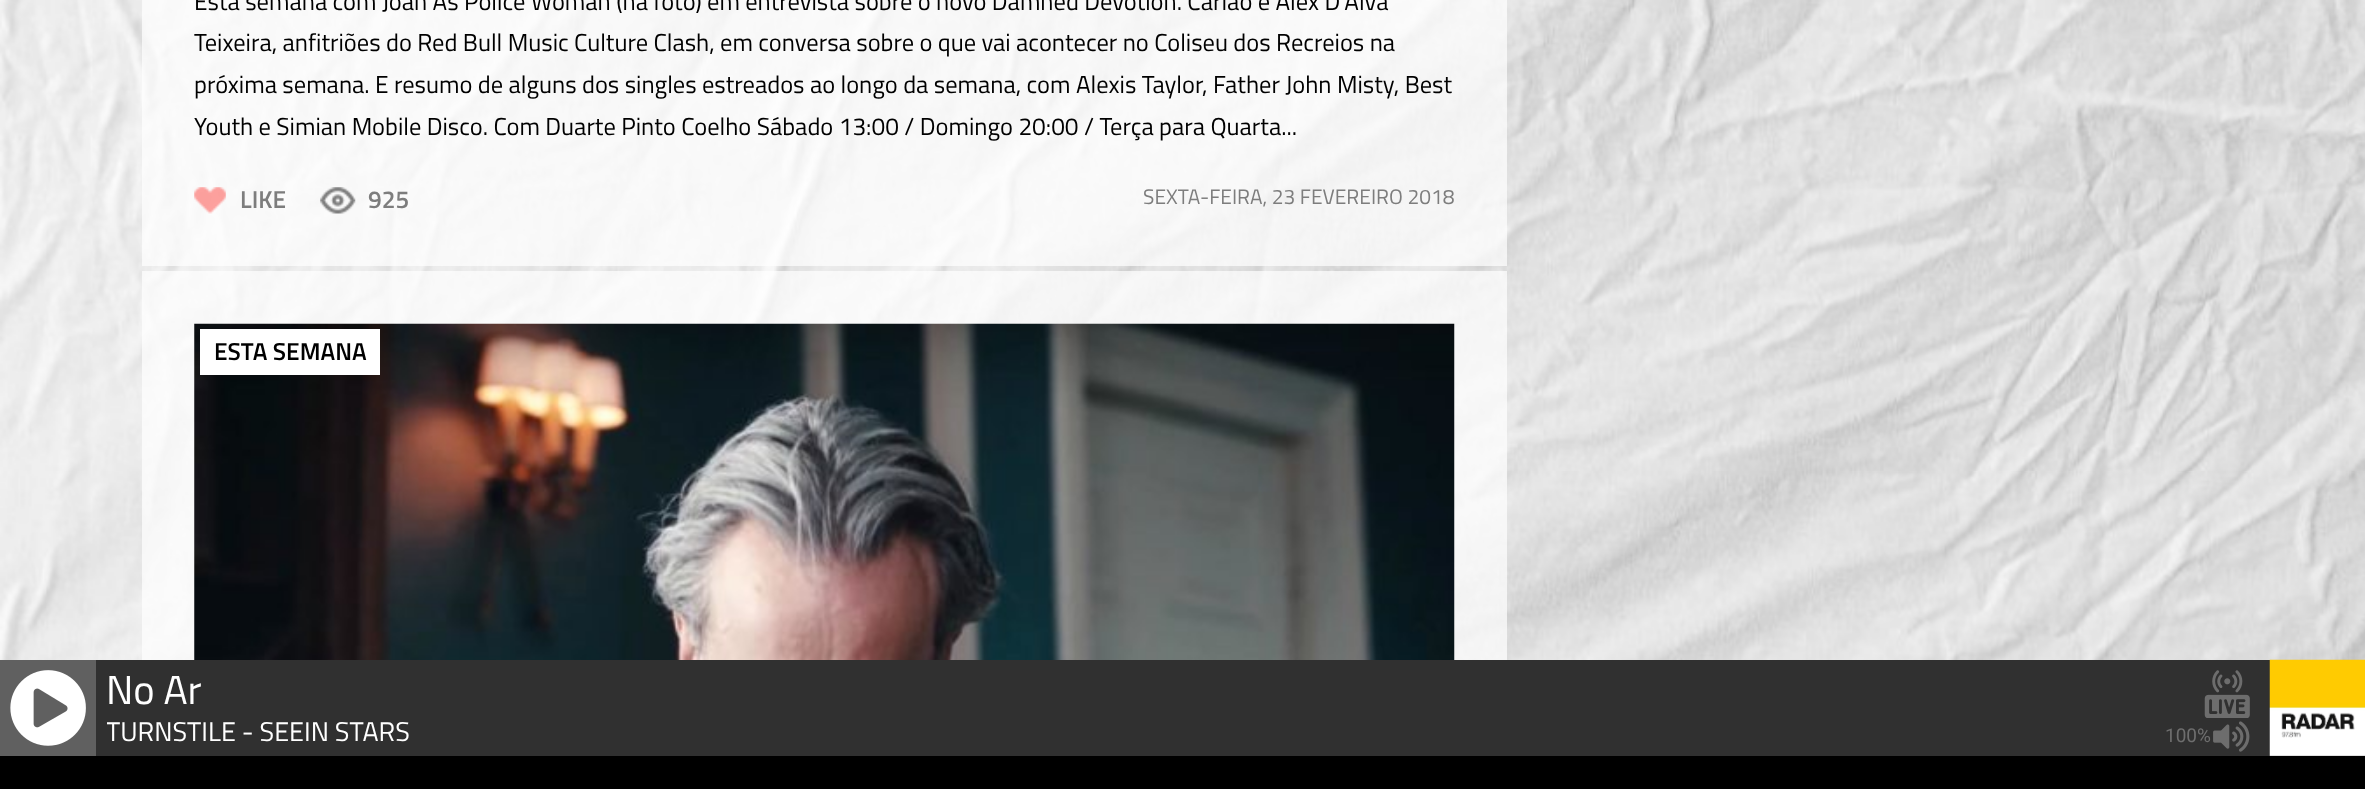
<svg xmlns="http://www.w3.org/2000/svg" xmlns:xlink="http://www.w3.org/1999/xlink" width="2365" height="789" viewBox="0 0 2365 789">
<style>
.cls-1{font:24.5px Titillium Web;fill:#000000}
.cls-2{font:600 24.5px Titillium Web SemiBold;fill:#7d7d7d}
.cls-3{font:21px Titillium Web;fill:#7d7d7d}
.cls-4{font:600 24.5px Titillium Web SemiBold;fill:#000000}
.cls-5{font:40.5px Titillium Web;fill:#ffffff}
.cls-6{font:27px Titillium Web;fill:#ffffff}
.cls-7{font:19px Roboto;fill:#6e6e6e}
</style>
<defs>
<clipPath id="clip1"><rect x="107" y="711" width="2058" height="45"/></clipPath>
</defs>
<rect width="100%" height="100%" fill="#ffffff"/>
<image xlink:href="image0.png" x="0" y="0" width="2365" height="660"/>
<rect fill="#ffffff" fill-opacity="0.7" x="142" y="0" width="1365" height="266"/>
<image xlink:href="image1.png" x="194" y="187" width="32" height="27"/>
<image xlink:href="image2.png" x="320" y="187" width="36" height="27"/>
<rect fill="#ffffff" fill-opacity="0.7" x="142" y="271" width="1365" height="389"/>
<image xlink:href="image3.png" x="194" y="323" width="1261" height="337"/>
<rect fill="#ffffff" x="200" y="329" width="180" height="46"/>
<rect fill="#606060" x="0" y="660" width="2365" height="96"/>
<image xlink:href="image4.png" x="10" y="670" width="76" height="76"/>
<rect fill="#303030" x="96" y="660" width="2174" height="96"/>
<image xlink:href="image5.png" x="2269" y="659" width="96" height="97"/>
<image xlink:href="image6.png" x="2204" y="670" width="46" height="48"/>
<image xlink:href="image7.png" x="2213" y="721" width="37" height="31"/>
<rect fill="#000000" x="0" y="756" width="2365" height="33"/>
<text class="cls-1"><tspan x="194" y="10">Esta semana com Joan As Police Woman (na foto) em entrevista sobre o novo Damned Devotion. Carlão e Alex D’Alva</tspan><tspan x="194" y="51">Teixeira, anfitriões do Red Bull Music Culture Clash, em conversa sobre o que vai acontecer no Coliseu dos Recreios na</tspan><tspan x="194" y="93">próxima semana. E resumo de alguns dos singles estreados ao longo da semana, com Alexis Taylor, Father John Misty, Best</tspan><tspan x="194" y="135">Youth e Simian Mobile Disco. Com Duarte Pinto Coelho Sábado 13:00 / Domingo 20:00 / Terça para Quarta...</tspan></text>
<text class="cls-2" x="240" y="208">LIKE</text>
<text class="cls-2" x="368" y="208">925</text>
<text class="cls-3" x="1143" y="204">SEXTA-FEIRA, 23 FEVEREIRO 2018</text>
<text class="cls-4" x="214" y="360">ESTA SEMANA</text>
<text class="cls-5" x="106" y="704">No Ar</text>
<g clip-path="url(#clip1)">
<text class="cls-6" x="106" y="741">TURNSTILE - SEEIN STARS</text>
</g>
<text class="cls-7" x="2165" y="742">100%</text>
</svg>
